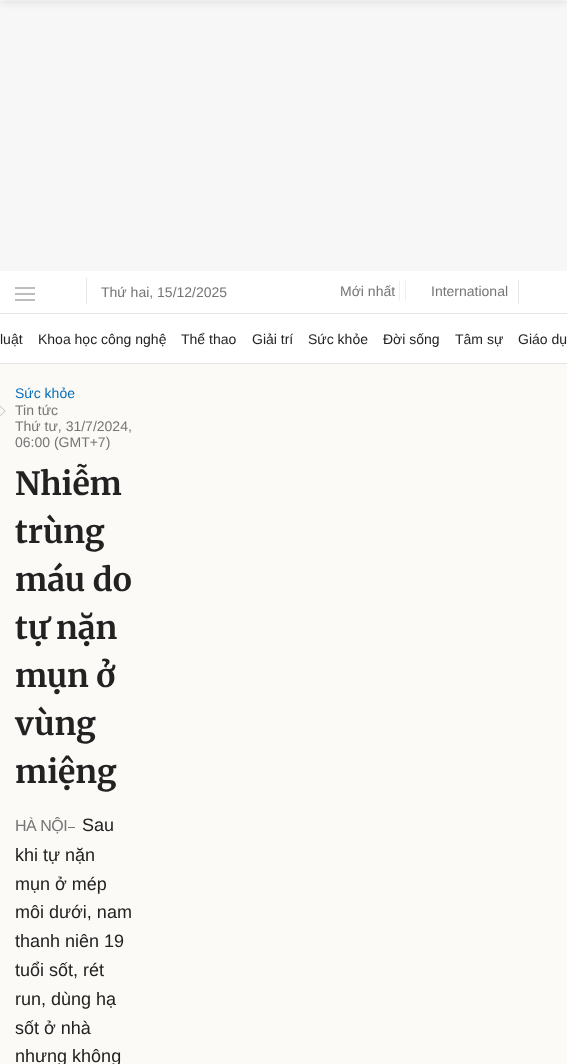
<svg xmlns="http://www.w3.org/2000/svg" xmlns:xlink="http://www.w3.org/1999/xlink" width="567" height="1064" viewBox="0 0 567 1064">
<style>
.cls-1{font:14px Liberation Sans;fill:#757575}
.cls-2{font:14px Liberation Sans;fill:#222222}
.cls-3{font:14px Liberation Sans;fill:#076db6}
.cls-4{font:bold 32px Merriweather;fill:#222222}
.cls-5{font:16px Liberation Sans;letter-spacing:-0.5px;fill:#757575}
.cls-6{font:18px Liberation Sans;fill:#222222}
</style>
<rect width="100%" height="100%" fill="#ffffff"/>
<rect fill="#f7f7f7" x="0" y="1" width="567" height="270"/>
<rect fill="#e5e5e5" x="0" y="313" width="567" height="1"/>
<rect fill="#bdbdbd" x="15" y="287" width="20" height="2"/>
<rect fill="#bdbdbd" x="15" y="293" width="20" height="2"/>
<rect fill="#bdbdbd" x="15" y="299" width="20" height="2"/>
<rect fill="#e5e5e5" x="86" y="278" width="1" height="26"/>
<rect fill="#efefef" x="405" y="281" width="1" height="20"/>
<rect fill="#efefef" x="399" y="281" width="1" height="20"/>
<rect fill="#e5e5e5" x="518" y="280" width="1" height="24"/>
<rect fill="#e5e5e5" x="0" y="363" width="567" height="1"/>
<rect fill="#fcfaf6" x="0" y="364" width="567" height="700"/>
<rect fill="#000000" fill-opacity="0.1" filter="blur(4px)" x="0" y="-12" width="567" height="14"/>
<path fill="#bdbdbd" d="M0 405.5L5.5 411L5 411.5L-.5 406Z"/>
<path fill="#bdbdbd" d="M5 410.5L5.5 411L0 416.5L-.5 416Z"/>
<rect fill="#757575" x="68" y="827" width="7" height="1"/>
<text class="cls-1" x="101" y="297">Thứ hai, 15/12/2025</text>
<text class="cls-1" x="340" y="296">Mới nhất</text>
<text class="cls-1" x="431" y="296">International</text>
<text class="cls-2" x="0" y="344">luật</text>
<text class="cls-2" x="38" y="344">Khoa học công nghệ</text>
<text class="cls-2" x="181" y="344">Thể thao</text>
<text class="cls-2" x="252" y="344">Giải trí</text>
<text class="cls-2" x="308" y="344">Sức khỏe</text>
<text class="cls-2" x="383" y="344">Đời sống</text>
<text class="cls-2" x="455" y="344">Tâm sự</text>
<text class="cls-2" x="518" y="344">Giáo dụ</text>
<text class="cls-3" x="15" y="398">Sức khỏe</text>
<text class="cls-1"><tspan x="15" y="415">Tin tức</tspan><tspan x="15" y="431">Thứ tư, 31/7/2024,</tspan><tspan x="15" y="447">06:00 (GMT+7)</tspan></text>
<text class="cls-4"><tspan x="15" y="495">Nhiễm</tspan><tspan x="15" y="543">trùng</tspan><tspan x="15" y="591">máu do</tspan><tspan x="15" y="639">tự nặn</tspan><tspan x="15" y="687">mụn ở</tspan><tspan x="15" y="735">vùng</tspan><tspan x="15" y="783">miệng</tspan></text>
<text class="cls-5" x="15" y="831">HÀ NỘI</text>
<text class="cls-6" x="82" y="831">Sau</text>
<text class="cls-6"><tspan x="15" y="861">khi tự nặn</tspan><tspan x="15" y="890">mụn ở mép</tspan><tspan x="15" y="918">môi dưới, nam</tspan><tspan x="15" y="947">thanh niên 19</tspan><tspan x="15" y="976">tuổi sốt, rét</tspan><tspan x="15" y="1005">run, dùng hạ</tspan><tspan x="15" y="1034">sốt ở nhà</tspan><tspan x="15" y="1062">nhưng không</tspan></text>
</svg>
